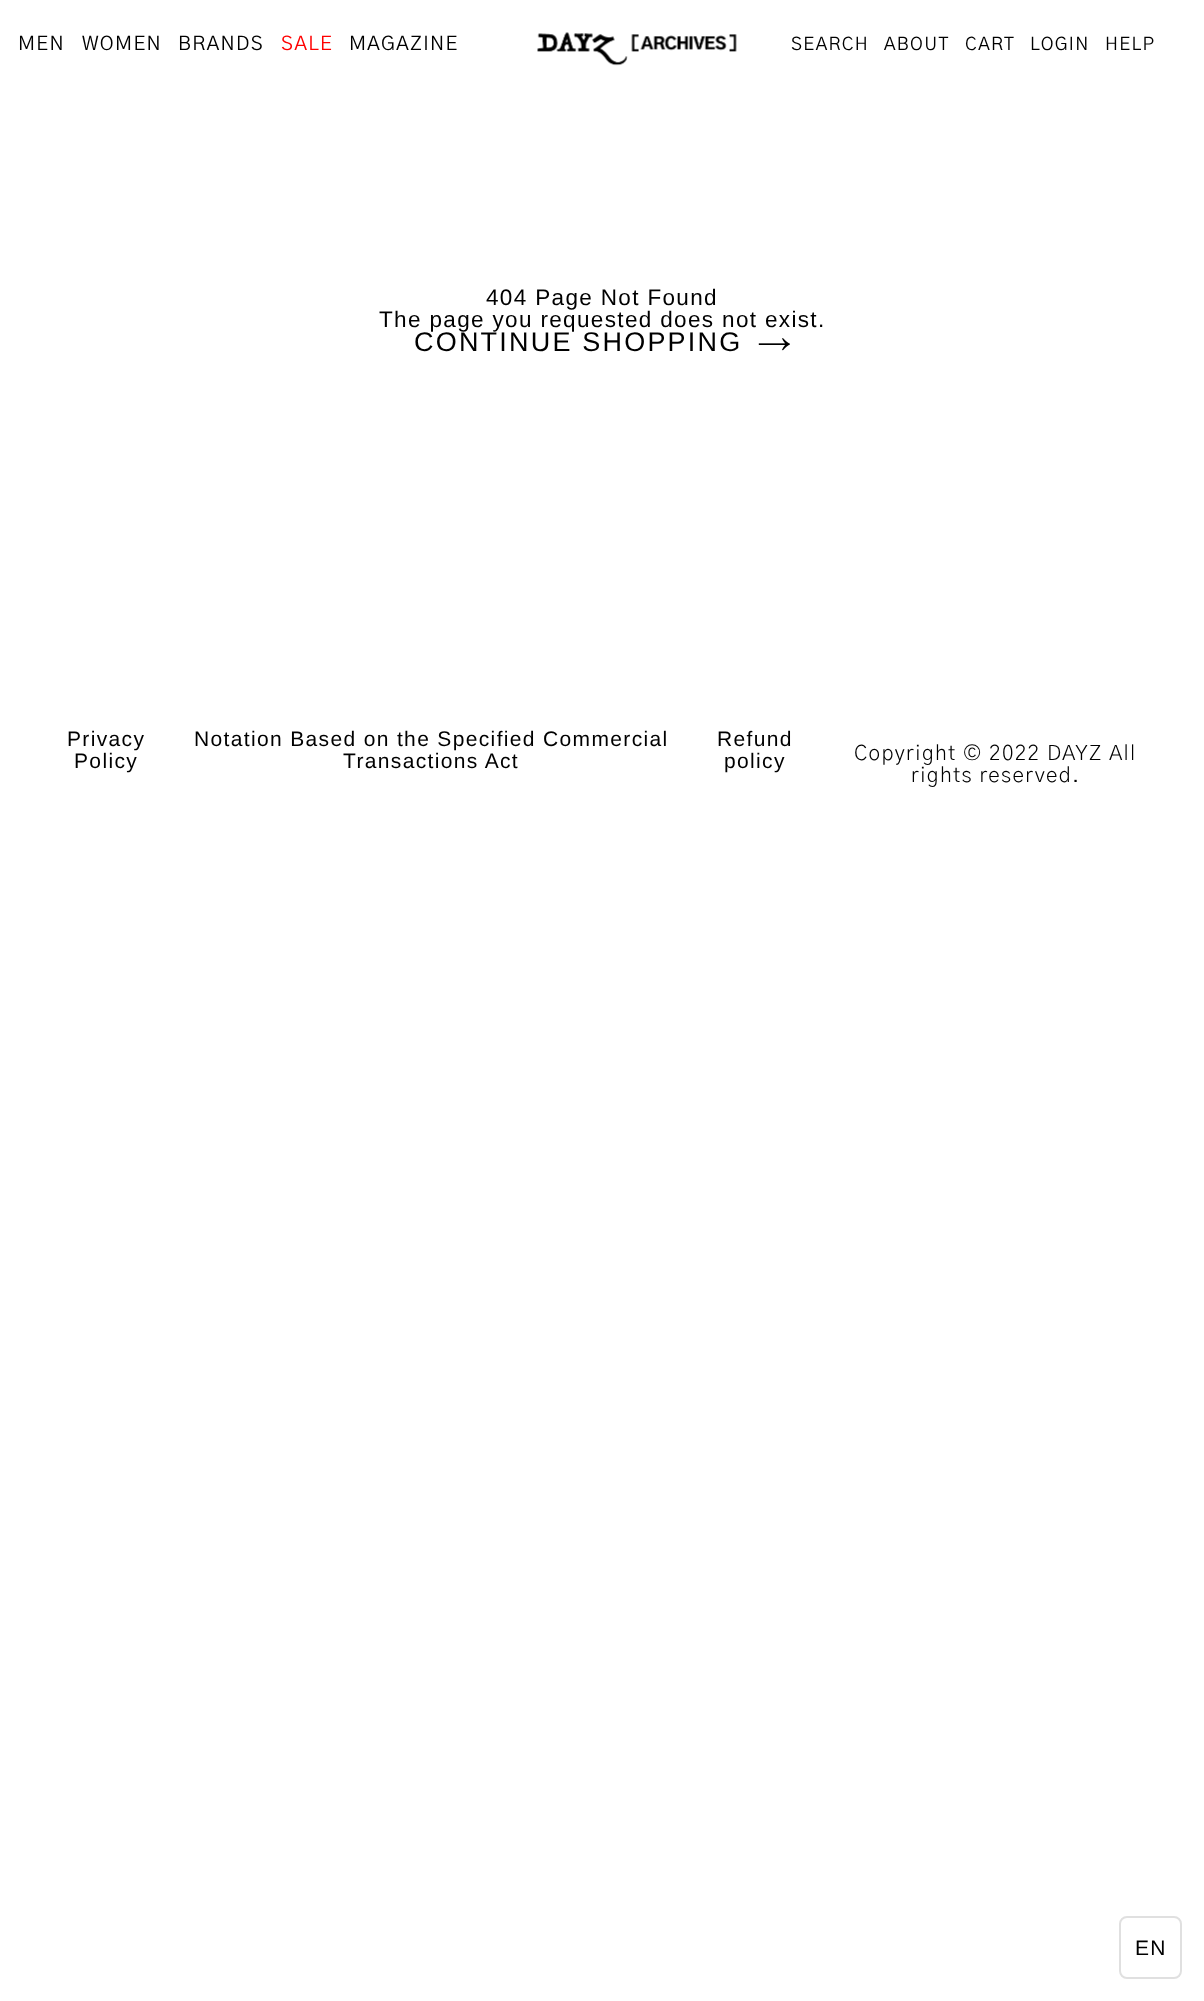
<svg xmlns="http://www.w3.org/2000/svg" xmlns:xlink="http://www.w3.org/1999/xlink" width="1204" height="2001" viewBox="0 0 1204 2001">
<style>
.cls-1{font:19.5px 'Gothic A1';letter-spacing:1.35px;fill:#000000}
.cls-2{font:19.5px 'Gothic A1';letter-spacing:1.35px;fill:#ff0000}
.cls-3{font:18px 'Gothic A1';letter-spacing:1.35px;fill:#000000}
.cls-4{font:22.5px Liberation Sans;letter-spacing:1.35px;fill:#000000}
.cls-5{font:27px Liberation Sans;letter-spacing:2.2px;fill:#000000}
.cls-6{font:21px Liberation Sans;letter-spacing:1.35px;fill:#000000}
.cls-7{font:300 21px 'Gothic A1';letter-spacing:1.35px;fill:#000000}
</style>
<rect width="100%" height="100%" fill="#ffffff"/>
<image xlink:href="image0.png" x="537" y="32" width="200" height="34"/>
<image xlink:href="image1.png" x="758" y="338" width="32" height="13"/>
<rect fill="none" stroke="#e0e0e0" stroke-width="2" x="1120" y="1917" width="61" height="61" rx="7"/>
<text class="cls-1" x="18" y="50">MEN</text>
<text class="cls-1" x="82" y="50">WOMEN</text>
<text class="cls-1" x="178" y="50">BRANDS</text>
<text class="cls-2" x="281" y="50">SALE</text>
<text class="cls-1" x="349" y="50">MAGAZINE</text>
<text class="cls-3" x="791" y="50">SEARCH</text>
<text class="cls-3" x="884" y="50">ABOUT</text>
<text class="cls-3" x="965" y="50">CART</text>
<text class="cls-3" x="1030" y="50">LOGIN</text>
<text class="cls-3" x="1105" y="50">HELP</text>
<text class="cls-4" x="486" y="305">404 Page Not Found</text>
<text class="cls-4" x="379" y="327">The page you requested does not exist.</text>
<text class="cls-5" x="414" y="351">CONTINUE SHOPPING</text>
<text class="cls-6" x="67" y="746">Privacy</text>
<text class="cls-6" x="74" y="768">Policy</text>
<text class="cls-6" x="194" y="746">Notation Based on the Specified Commercial</text>
<text class="cls-6" x="343" y="768">Transactions Act</text>
<text class="cls-6" x="717" y="746">Refund</text>
<text class="cls-6" x="724" y="768">policy</text>
<text class="cls-7" x="854" y="760">Copyright © 2022 DAYZ All</text>
<text class="cls-7" x="911" y="782">rights reserved.</text>
<text class="cls-6" x="1135" y="1955">EN</text>
</svg>
